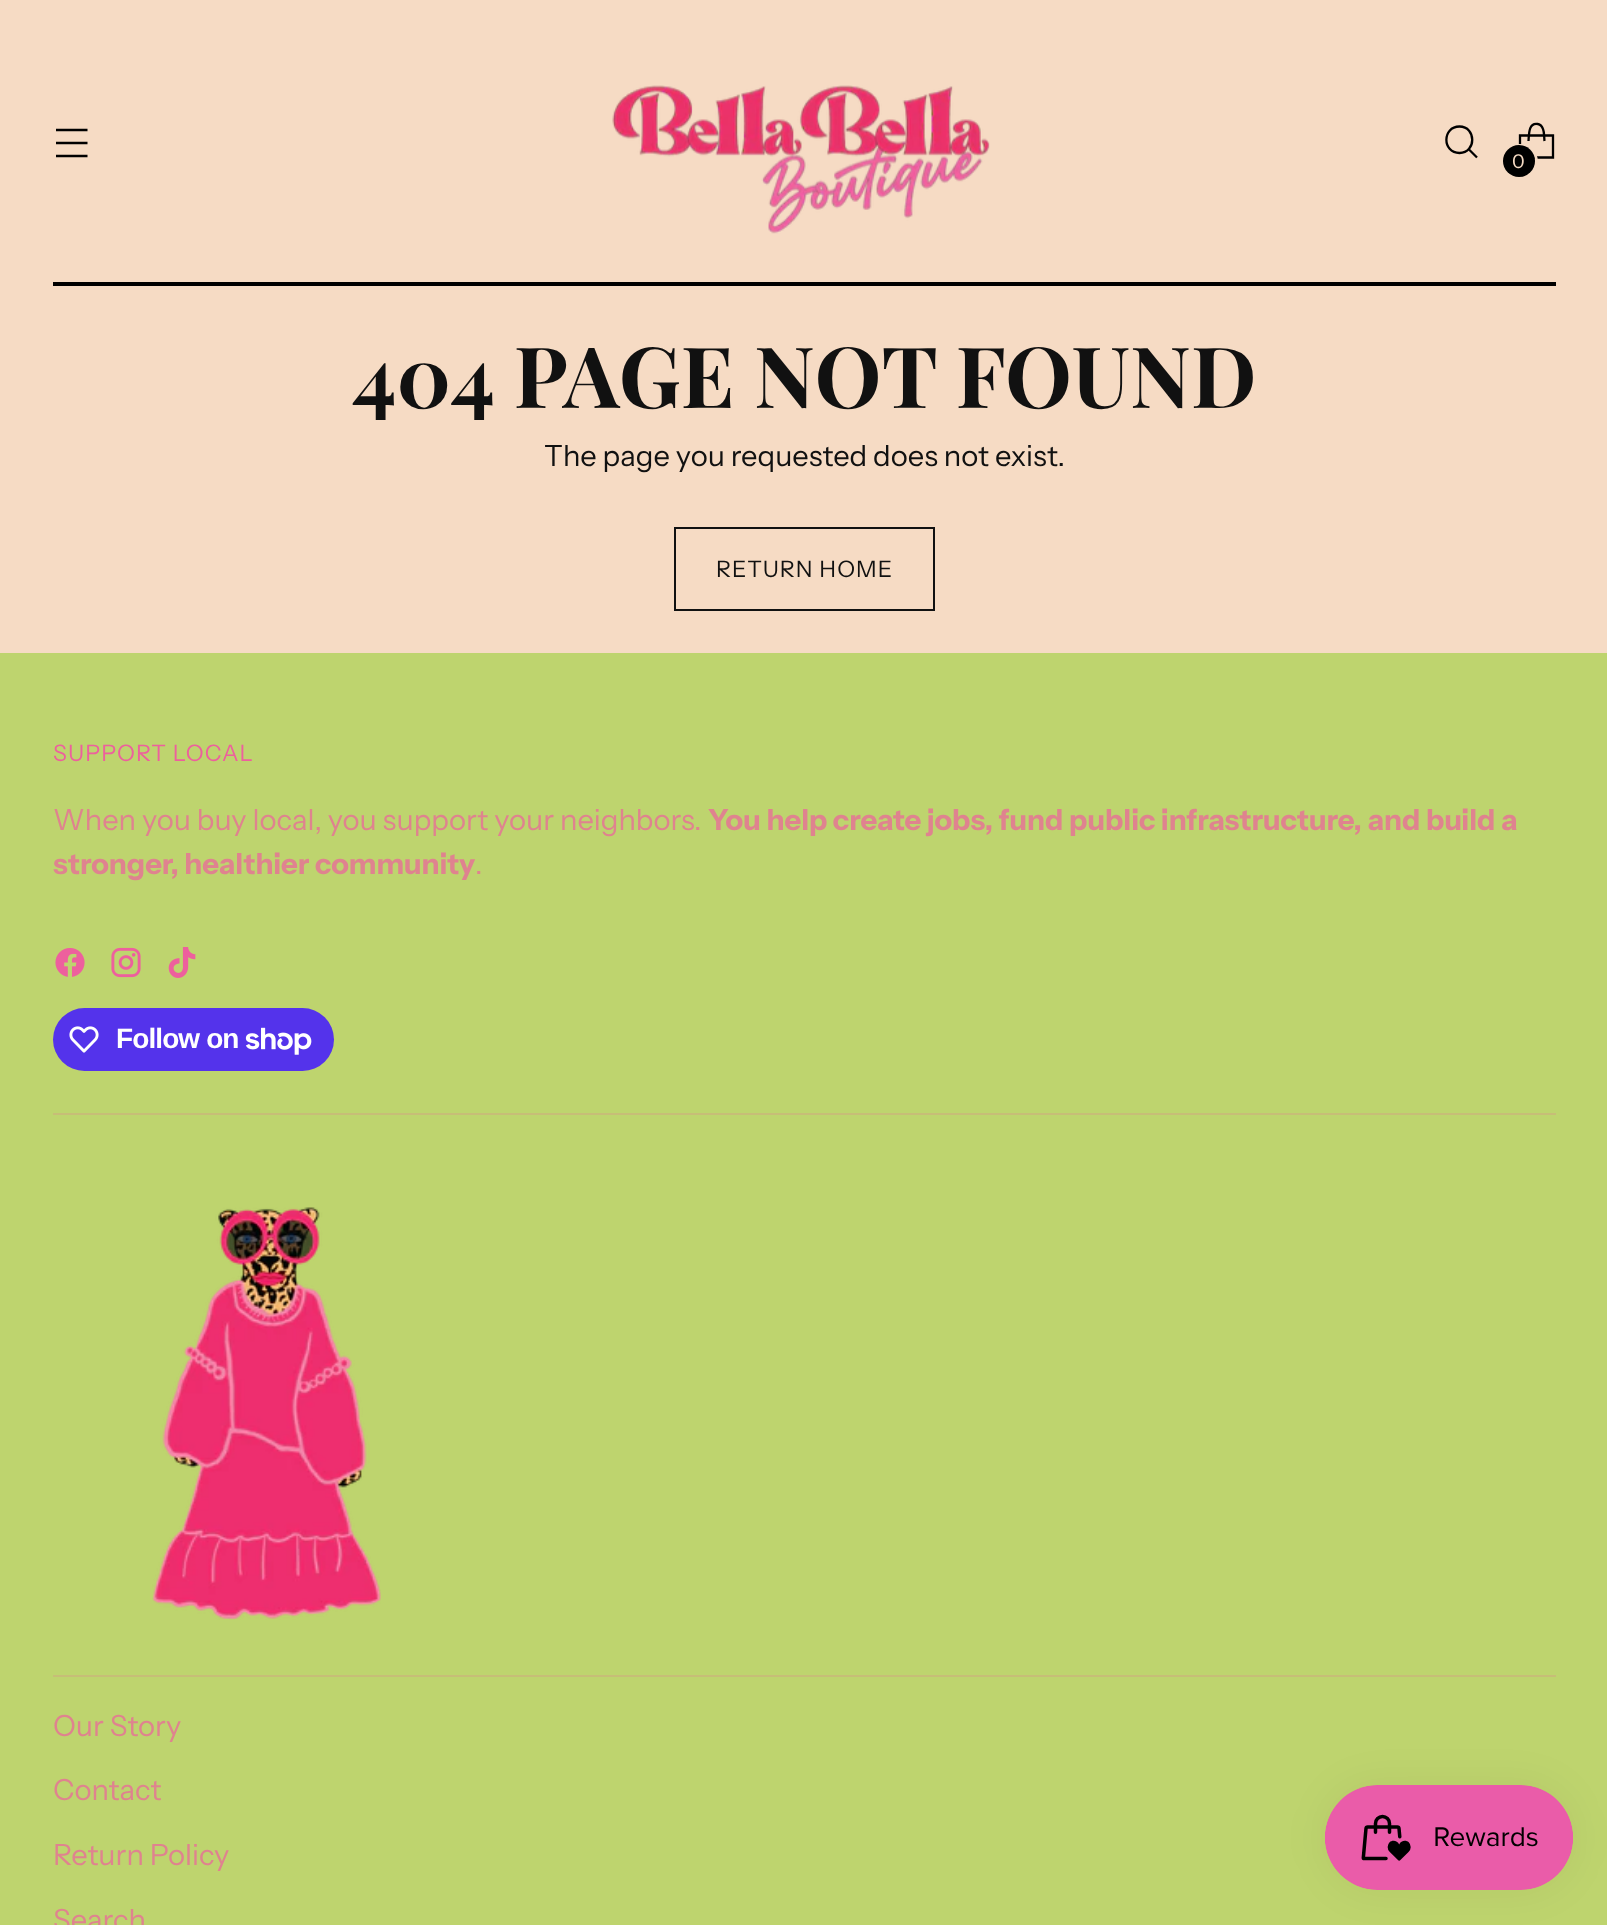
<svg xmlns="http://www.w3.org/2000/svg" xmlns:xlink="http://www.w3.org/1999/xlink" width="1607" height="1925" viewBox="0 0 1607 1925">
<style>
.cls-1{font:19px Instrument Sans;fill:#f6dbc4}
.cls-2{font:bold 84.5px Playfair Display;fill:#111111}
.cls-3{font:29.15px Instrument Sans;fill:#111111}
.cls-4{font:22.75px Instrument Sans;letter-spacing:1.1px;fill:#111111}
.cls-5{font:22.75px Instrument Sans;letter-spacing:1.1px;fill:#ed609d}
.cls-6{font:29.15px Instrument Sans;fill:#df838f}
.cls-7{font:bold 29.15px Instrument Sans;fill:#df838f}
.cls-8{font:bold 28px Liberation Sans;letter-spacing:-0.9px;fill:#ffffff}
</style>
<rect width="100%" height="100%" fill="#f6dbc4"/>
<rect fill="#000000" x="53" y="282" width="1503" height="4"/>
<path fill="none" stroke="#000000" stroke-width="2.3" d="M56 143H87.5M56 130H87.5M56 156H87.5"/>
<image xlink:href="image0.png" x="612" y="85" width="378" height="149"/>
<path fill="none" stroke="#000000" stroke-width="2.3" stroke-linecap="round" d="M1459.5 153C1476.5 153 1476.5 126.5 1459.5 126.5C1442 126.5 1442 153 1459.5 153Z"/>
<path fill="none" stroke="#000000" stroke-width="2.3" d="M1469 149.5L1477 157.5"/>
<path fill="none" stroke="#000000" stroke-width="2.3" stroke-linejoin="bevel" d="M1544.5 141C1544 137 1544.5 132.5 1543 129C1542 126.5 1540.5 124.5 1538 124C1528.5 122 1529 134.5 1528.5 141"/>
<path fill="none" stroke="#000000" stroke-width="2.3" d="M1553 157.5V135.5H1520V157.5Z"/>
<circle fill="none" stroke="#f6dbc4" stroke-width="3" cx="1520" cy="162" r="16.5"/>
<circle fill="#000000" cx="1519" cy="161" r="16"/>
<rect fill="none" stroke="#111111" stroke-width="2" x="675" y="528" width="259" height="82"/>
<rect fill="#bed46e" x="0" y="653" width="1607" height="1272"/>
<rect fill="#c7bd77" x="53" y="1113" width="1503" height="2"/>
<image xlink:href="image1.png" x="55" y="948" width="30" height="29"/>
<image xlink:href="image2.png" x="111" y="947" width="30" height="31"/>
<image xlink:href="image3.png" x="168" y="947" width="28" height="31"/>
<rect fill="#5433eb" x="53" y="1008" width="281" height="63" rx="31.5"/>
<image xlink:href="image4.png" x="69" y="1026" width="30" height="27"/>
<image xlink:href="image5.png" x="245" y="1027" width="67" height="28"/>
<rect fill="#c7bd77" x="53" y="1675" width="1503" height="2"/>
<image xlink:href="image6.png" x="152" y="1207" width="229" height="413"/>
<rect fill="#000000" fill-opacity="0.05" filter="blur(22px)" x="1325" y="1785" width="248" height="105" rx="52.5"/>
<image xlink:href="image7.png" x="1325" y="1785" width="248" height="105"/>
<text class="cls-1" x="1512" y="168">0</text>
<text class="cls-2" x="352" y="408">404 PAGE NOT FOUND</text>
<text class="cls-3" x="544" y="466">The page you requested does not exist.</text>
<text class="cls-4" x="716" y="577">RETURN HOME</text>
<text class="cls-5" x="53" y="761">SUPPORT LOCAL</text>
<text class="cls-6" x="53" y="830">When you buy local, you support your neighbors.</text>
<text class="cls-7" x="708" y="830">You help create jobs, fund public infrastructure, and build a</text>
<text class="cls-7" x="53" y="874">stronger, healthier community</text>
<text class="cls-6" x="475" y="874">.</text>
<text class="cls-8" x="116" y="1048">Follow on</text>
<text class="cls-6" x="53" y="1736">Our Story</text>
<text class="cls-6" x="53" y="1800">Contact</text>
<text class="cls-6" x="53" y="1865">Return Policy</text>
<text class="cls-6" x="53" y="1930">Search</text>
</svg>
